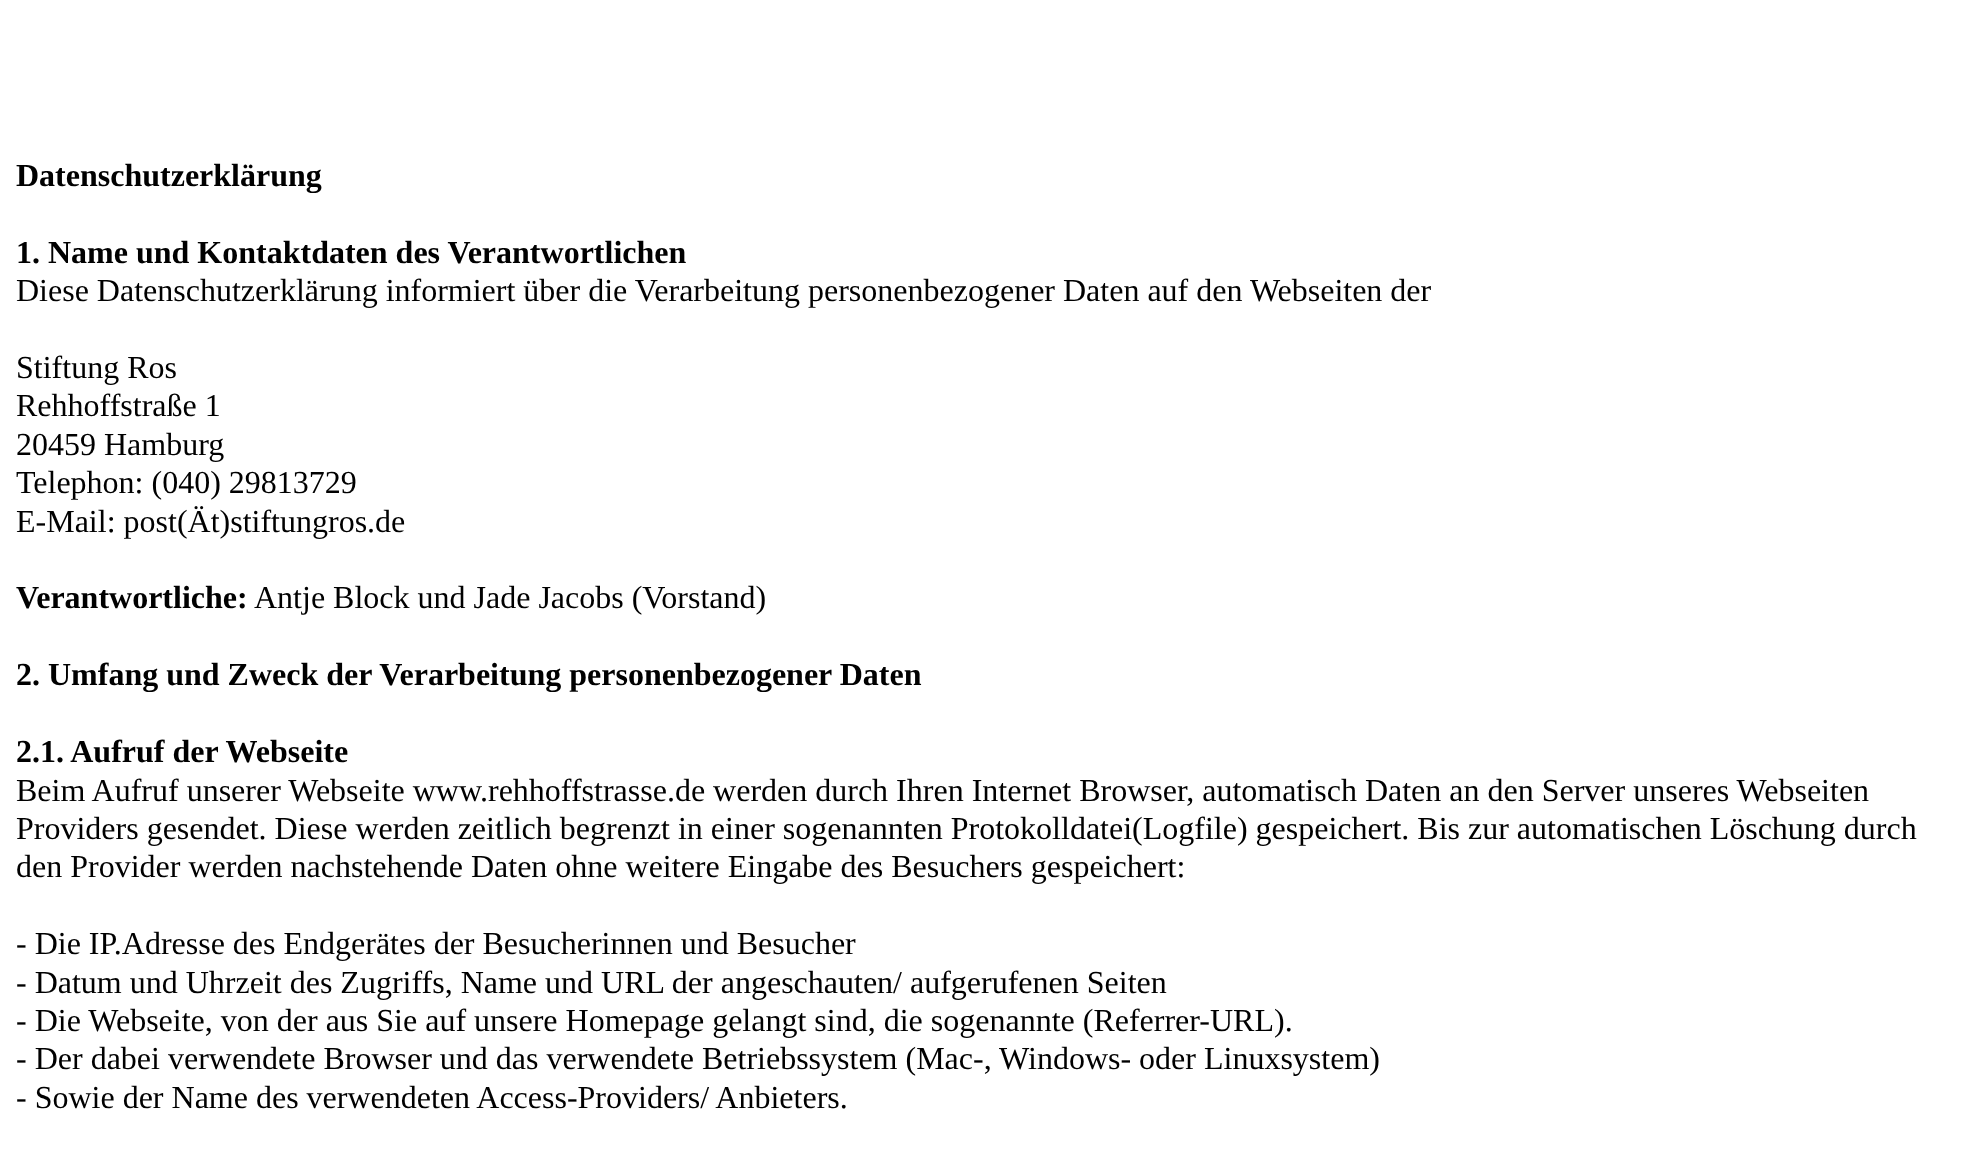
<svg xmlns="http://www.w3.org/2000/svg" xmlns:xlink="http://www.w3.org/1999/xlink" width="1977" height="1156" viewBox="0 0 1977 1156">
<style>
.cls-1{font:bold 32px Liberation Serif;fill:#000000}
.cls-2{font:32px Liberation Serif;fill:#000000}
</style>
<rect width="100%" height="100%" fill="#ffffff"/>
<text class="cls-1" x="16" y="186">Datenschutzerklärung</text>
<text class="cls-1" x="16" y="263">1. Name und Kontaktdaten des Verantwortlichen</text>
<text class="cls-2" x="16" y="301">Diese Datenschutzerklärung informiert über die Verarbeitung personenbezogener Daten auf den Webseiten der</text>
<text class="cls-2"><tspan x="16" y="378">Stiftung Ros</tspan><tspan x="16" y="416">Rehhoffstraße 1</tspan><tspan x="16" y="455">20459 Hamburg</tspan><tspan x="16" y="493">Telephon: (040) 29813729</tspan><tspan x="16" y="532">E-Mail: post(Ät)stiftungros.de</tspan></text>
<text class="cls-1" x="16" y="608">Verantwortliche:</text>
<text class="cls-2" x="254" y="608">Antje Block und Jade Jacobs (Vorstand)</text>
<text class="cls-1" x="16" y="685">2. Umfang und Zweck der Verarbeitung personenbezogener Daten</text>
<text class="cls-1" x="16" y="762">2.1. Aufruf der Webseite</text>
<text class="cls-2"><tspan x="16" y="801">Beim Aufruf unserer Webseite www.rehhoffstrasse.de werden durch Ihren Internet Browser, automatisch Daten an den Server unseres Webseiten</tspan><tspan x="16" y="839">Providers gesendet. Diese werden zeitlich begrenzt in einer sogenannten Protokolldatei(Logfile) gespeichert. Bis zur automatischen Löschung durch</tspan><tspan x="16" y="877">den Provider werden nachstehende Daten ohne weitere Eingabe des Besuchers gespeichert:</tspan></text>
<text class="cls-2"><tspan x="16" y="954">- Die IP.Adresse des Endgerätes der Besucherinnen und Besucher</tspan><tspan x="16" y="993">- Datum und Uhrzeit des Zugriffs, Name und URL der angeschauten/ aufgerufenen Seiten</tspan><tspan x="16" y="1031">- Die Webseite, von der aus Sie auf unsere Homepage gelangt sind, die sogenannte (Referrer-URL).</tspan><tspan x="16" y="1069">- Der dabei verwendete Browser und das verwendete Betriebssystem (Mac-, Windows- oder Linuxsystem)</tspan><tspan x="16" y="1108">- Sowie der Name des verwendeten Access-Providers/ Anbieters.</tspan></text>
</svg>
